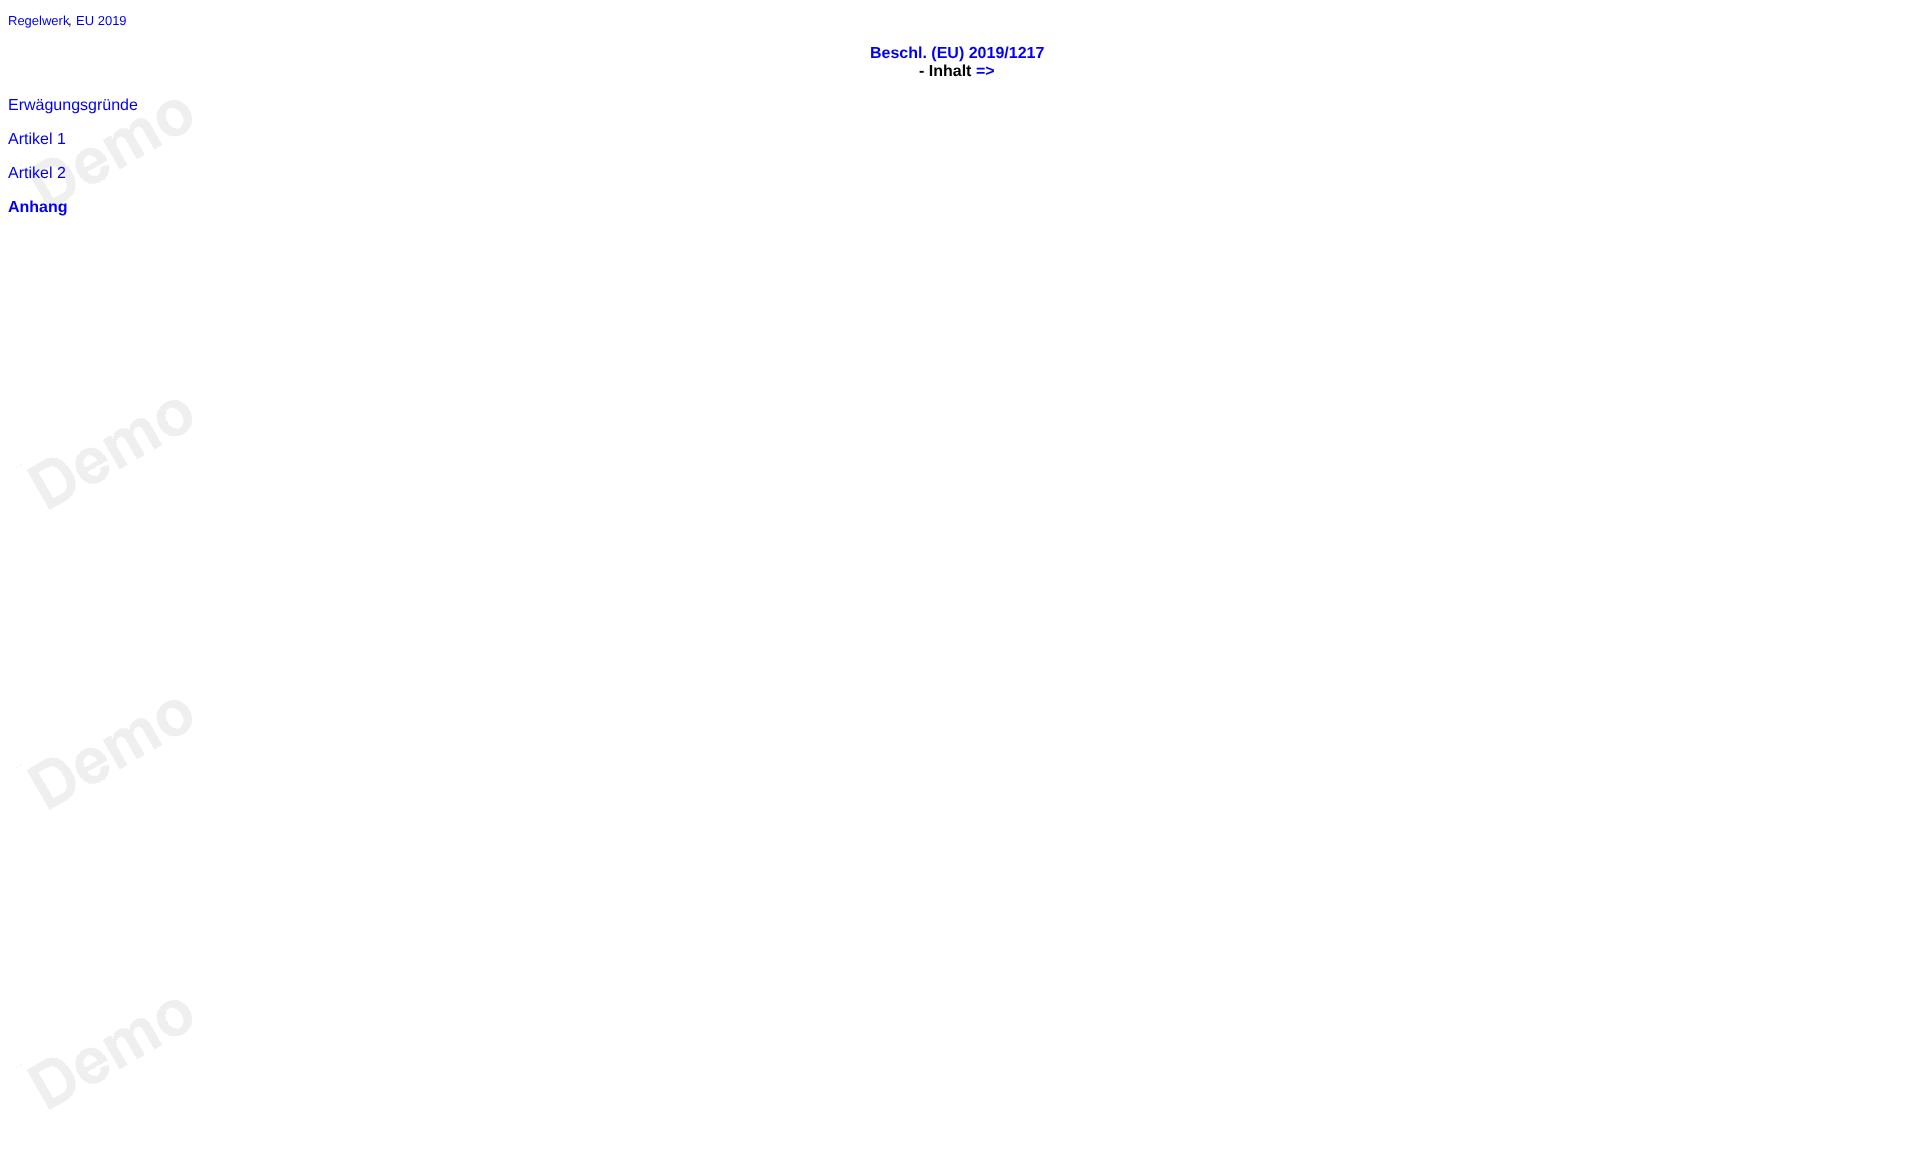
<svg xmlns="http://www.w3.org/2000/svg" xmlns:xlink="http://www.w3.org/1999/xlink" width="1914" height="1171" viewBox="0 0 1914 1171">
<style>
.cls-1{font:13px Liberation Sans;fill:#0000ee}
.cls-2{font:13px Liberation Sans;fill:#000000}
.cls-3{font:bold 16px Liberation Sans;fill:#0000ee}
.cls-4{font:bold 16px Liberation Sans;fill:#000000}
.cls-5{font:16px Liberation Sans;fill:#0000ee}
</style>
<rect width="100%" height="100%" fill="#ffffff"/>
<image xlink:href="image0.png" x="16" y="100" width="177" height="1010"/>
<text class="cls-1" x="8" y="25">Regelwerk</text>
<text class="cls-2" x="68" y="25">,</text>
<text class="cls-1" x="76" y="25">EU 2019</text>
<text class="cls-3" x="870" y="58">Beschl. (EU) 2019/1217</text>
<text class="cls-4" x="919" y="76">- Inhalt</text>
<text class="cls-3" x="976" y="76">=&gt;</text>
<text class="cls-5" x="8" y="110">Erwägungsgründe</text>
<text class="cls-5" x="8" y="144">Artikel 1</text>
<text class="cls-5" x="8" y="178">Artikel 2</text>
<text class="cls-3" x="8" y="212">Anhang</text>
</svg>
